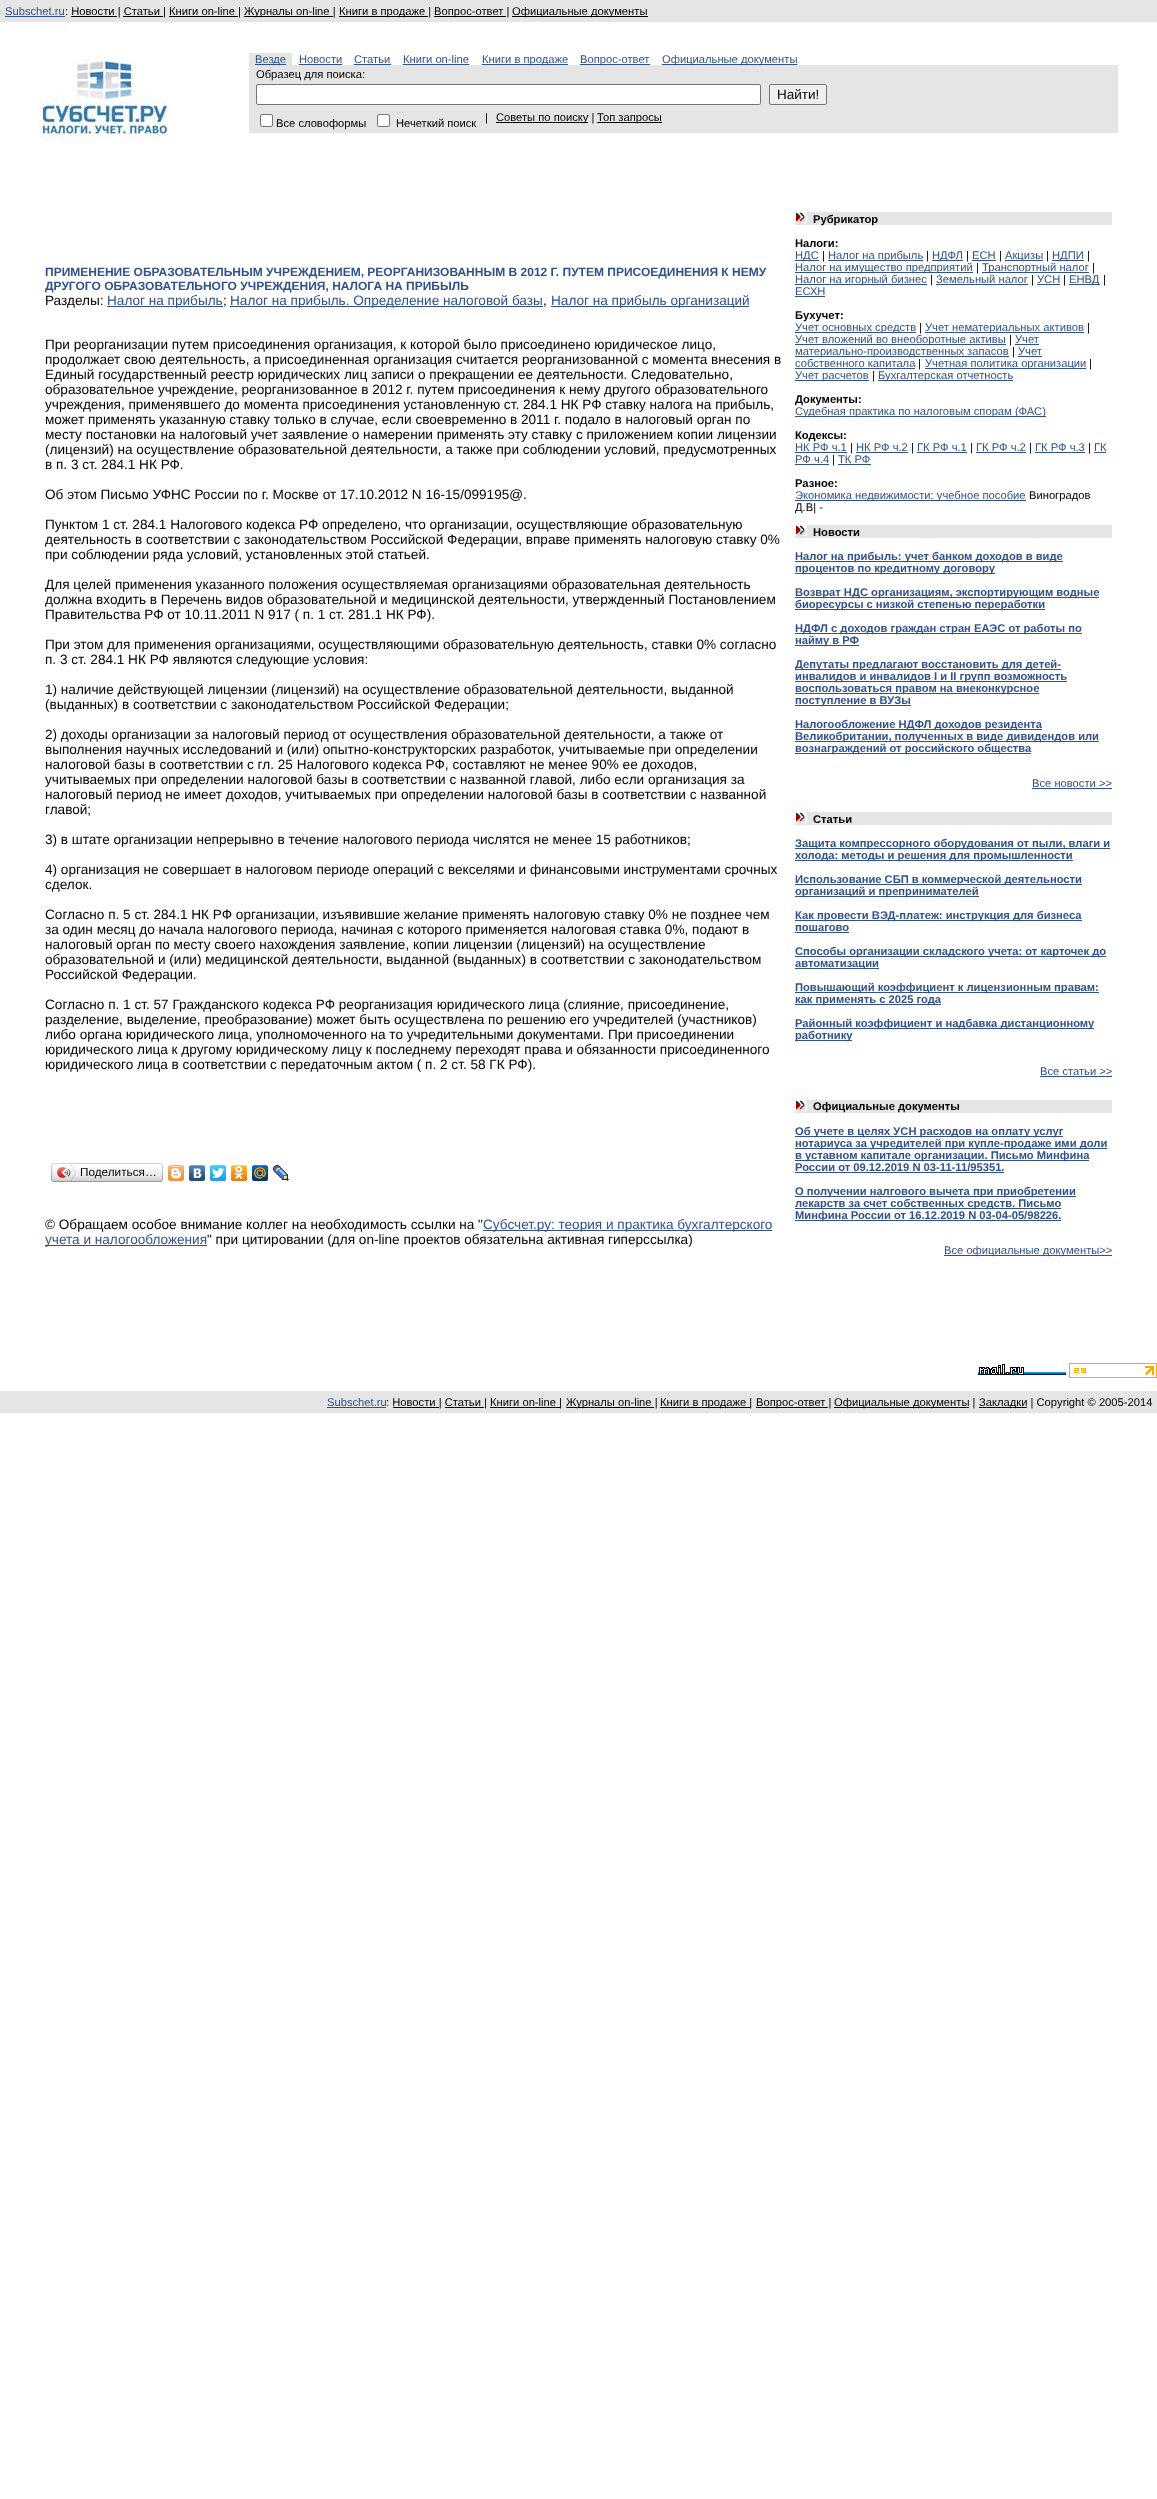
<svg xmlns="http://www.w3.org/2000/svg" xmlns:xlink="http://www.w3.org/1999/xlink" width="1157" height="2499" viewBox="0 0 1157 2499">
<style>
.cls-1{font:11.2px Liberation Sans;fill:#31518c}
.cls-2{font:11.2px Liberation Sans;fill:#000000}
.cls-3{font:13.5px Liberation Sans;fill:#000000}
.cls-4{font:bold 12px Liberation Sans;fill:#31518c}
.cls-5{font:13.6px Liberation Sans;fill:#000000}
.cls-6{font:13.6px Liberation Sans;fill:#31518c}
.cls-7{font:11.75px Liberation Sans;fill:#000000}
.cls-8{font:bold 11.2px Liberation Sans;fill:#000000}
.cls-9{font:bold 11.2px Liberation Sans;fill:#31518c}
</style>
<rect width="100%" height="100%" fill="#ffffff"/>
<rect fill="#e5e5e5" x="0" y="0" width="1157" height="22"/>
<rect fill="#31518c" x="5" y="16" width="60" height="1"/>
<rect fill="#000000" x="244" y="16" width="89" height="1"/>
<rect fill="#000000" x="339" y="16" width="89" height="1"/>
<rect fill="#000000" x="434" y="16" width="72" height="1"/>
<rect fill="#000000" x="512" y="16" width="136" height="1"/>
<rect fill="#000000" x="71" y="16" width="46" height="1"/>
<rect fill="#000000" x="123" y="16" width="40" height="1"/>
<rect fill="#000000" x="169" y="16" width="69" height="1"/>
<image xlink:href="image0.png" x="39" y="60" width="129" height="80"/>
<rect fill="#e5e5e5" x="249" y="53" width="6" height="12"/>
<rect fill="#e5e5e5" x="255" y="53" width="31" height="11"/>
<rect fill="#e5e5e5" x="286" y="53" width="6" height="12"/>
<rect fill="#31518c" x="255" y="64" width="31" height="1"/>
<rect fill="#31518c" x="299" y="64" width="43" height="1"/>
<rect fill="#31518c" x="354" y="64" width="37" height="1"/>
<rect fill="#31518c" x="403" y="64" width="66" height="1"/>
<rect fill="#31518c" x="482" y="64" width="86" height="1"/>
<rect fill="#31518c" x="580" y="64" width="70" height="1"/>
<rect fill="#31518c" x="662" y="64" width="135" height="1"/>
<rect fill="#e5e5e5" x="249" y="65" width="869" height="68"/>
<rect fill="#ffffff" stroke="#767676" x="256.5" y="84.5" width="504" height="20" rx="1.5"/>
<rect fill="#efefef" stroke="#767676" x="769.5" y="84.5" width="57" height="20" rx="1.5"/>
<rect fill="#ffffff" stroke="#767676" x="260.5" y="114.5" width="12" height="12" rx="1.5"/>
<rect fill="#ffffff" stroke="#767676" x="377.5" y="114.5" width="12" height="12" rx="1.5"/>
<rect fill="#000000" x="496" y="122" width="92" height="1"/>
<rect fill="#000000" x="597" y="122" width="65" height="1"/>
<rect fill="#31518c" x="107" y="306" width="116" height="1"/>
<rect fill="#31518c" x="230" y="306" width="313" height="1"/>
<rect fill="#31518c" x="551" y="306" width="198" height="1"/>
<image xlink:href="image1.png" x="54" y="1163" width="106" height="19"/>
<image xlink:href="image2.png" x="51" y="1163" width="3" height="19"/>
<image xlink:href="image3.png" x="57" y="1164" width="20" height="17"/>
<image xlink:href="image4.png" x="160" y="1163" width="3" height="19"/>
<image xlink:href="image5.png" x="168" y="1165" width="16" height="16"/>
<image xlink:href="image6.png" x="189" y="1165" width="16" height="16"/>
<image xlink:href="image7.png" x="210" y="1165" width="16" height="16"/>
<image xlink:href="image8.png" x="231" y="1165" width="16" height="16"/>
<image xlink:href="image9.png" x="252" y="1165" width="16" height="16"/>
<image xlink:href="image10.png" x="273" y="1165" width="16" height="16"/>
<rect fill="#31518c" x="483" y="1230" width="289" height="1"/>
<rect fill="#31518c" x="45" y="1245" width="162" height="1"/>
<rect fill="#e5e5e5" x="795" y="212" width="317" height="13"/>
<image xlink:href="image11.png" x="795" y="212" width="12" height="11"/>
<rect fill="#31518c" x="795" y="260" width="24" height="1"/>
<rect fill="#31518c" x="828" y="260" width="95" height="1"/>
<rect fill="#31518c" x="932" y="260" width="31" height="1"/>
<rect fill="#31518c" x="972" y="260" width="24" height="1"/>
<rect fill="#31518c" x="1005" y="260" width="38" height="1"/>
<rect fill="#31518c" x="1052" y="260" width="32" height="1"/>
<rect fill="#31518c" x="795" y="272" width="178" height="1"/>
<rect fill="#31518c" x="982" y="272" width="107" height="1"/>
<rect fill="#31518c" x="795" y="284" width="132" height="1"/>
<rect fill="#31518c" x="936" y="284" width="92" height="1"/>
<rect fill="#31518c" x="1037" y="284" width="23" height="1"/>
<rect fill="#31518c" x="1069" y="284" width="31" height="1"/>
<rect fill="#31518c" x="795" y="296" width="30" height="1"/>
<rect fill="#31518c" x="795" y="332" width="121" height="1"/>
<rect fill="#31518c" x="925" y="332" width="159" height="1"/>
<rect fill="#31518c" x="795" y="344" width="211" height="1"/>
<rect fill="#31518c" x="1015" y="344" width="24" height="1"/>
<rect fill="#31518c" x="795" y="356" width="214" height="1"/>
<rect fill="#31518c" x="1018" y="356" width="24" height="1"/>
<rect fill="#31518c" x="795" y="368" width="120" height="1"/>
<rect fill="#31518c" x="925" y="368" width="161" height="1"/>
<rect fill="#31518c" x="795" y="380" width="74" height="1"/>
<rect fill="#31518c" x="878" y="380" width="135" height="1"/>
<rect fill="#31518c" x="795" y="416" width="251" height="1"/>
<rect fill="#31518c" x="795" y="452" width="52" height="1"/>
<rect fill="#31518c" x="856" y="452" width="52" height="1"/>
<rect fill="#31518c" x="917" y="452" width="50" height="1"/>
<rect fill="#31518c" x="976" y="452" width="50" height="1"/>
<rect fill="#31518c" x="1035" y="452" width="50" height="1"/>
<rect fill="#31518c" x="1094" y="452" width="12" height="1"/>
<rect fill="#31518c" x="795" y="464" width="34" height="1"/>
<rect fill="#31518c" x="838" y="464" width="33" height="1"/>
<rect fill="#31518c" x="795" y="500" width="231" height="1"/>
<rect fill="#e5e5e5" x="795" y="525" width="317" height="13"/>
<image xlink:href="image11.png" x="795" y="525" width="12" height="11"/>
<rect fill="#31518c" x="795" y="561" width="268" height="1"/>
<rect fill="#31518c" x="795" y="573" width="200" height="1"/>
<rect fill="#31518c" x="795" y="597" width="304" height="1"/>
<rect fill="#31518c" x="795" y="609" width="250" height="1"/>
<rect fill="#31518c" x="795" y="633" width="287" height="1"/>
<rect fill="#31518c" x="795" y="645" width="64" height="1"/>
<rect fill="#31518c" x="795" y="669" width="266" height="1"/>
<rect fill="#31518c" x="795" y="681" width="272" height="1"/>
<rect fill="#31518c" x="795" y="693" width="244" height="1"/>
<rect fill="#31518c" x="795" y="705" width="116" height="1"/>
<rect fill="#31518c" x="795" y="729" width="247" height="1"/>
<rect fill="#31518c" x="795" y="741" width="304" height="1"/>
<rect fill="#31518c" x="795" y="753" width="236" height="1"/>
<rect fill="#31518c" x="1032" y="788" width="80" height="1"/>
<rect fill="#e5e5e5" x="795" y="812" width="317" height="13"/>
<image xlink:href="image11.png" x="795" y="812" width="12" height="11"/>
<rect fill="#31518c" x="795" y="848" width="315" height="1"/>
<rect fill="#31518c" x="795" y="860" width="278" height="1"/>
<rect fill="#31518c" x="795" y="884" width="287" height="1"/>
<rect fill="#31518c" x="795" y="896" width="184" height="1"/>
<rect fill="#31518c" x="795" y="920" width="287" height="1"/>
<rect fill="#31518c" x="795" y="932" width="54" height="1"/>
<rect fill="#31518c" x="795" y="956" width="311" height="1"/>
<rect fill="#31518c" x="795" y="968" width="84" height="1"/>
<rect fill="#31518c" x="795" y="992" width="304" height="1"/>
<rect fill="#31518c" x="795" y="1004" width="146" height="1"/>
<rect fill="#31518c" x="795" y="1028" width="299" height="1"/>
<rect fill="#31518c" x="795" y="1040" width="57" height="1"/>
<rect fill="#31518c" x="1040" y="1076" width="72" height="1"/>
<rect fill="#e5e5e5" x="795" y="1100" width="317" height="13"/>
<image xlink:href="image11.png" x="795" y="1100" width="12" height="11"/>
<rect fill="#31518c" x="795" y="1136" width="268" height="1"/>
<rect fill="#31518c" x="795" y="1148" width="312" height="1"/>
<rect fill="#31518c" x="795" y="1160" width="294" height="1"/>
<rect fill="#31518c" x="795" y="1172" width="209" height="1"/>
<rect fill="#31518c" x="795" y="1196" width="281" height="1"/>
<rect fill="#31518c" x="795" y="1208" width="266" height="1"/>
<rect fill="#31518c" x="795" y="1220" width="266" height="1"/>
<rect fill="#31518c" x="944" y="1255" width="168" height="1"/>
<image xlink:href="image12.png" x="978" y="1364" width="88" height="11"/>
<image xlink:href="image13.png" x="1069" y="1363" width="88" height="15"/>
<rect fill="#e5e5e5" x="0" y="1391" width="1157" height="22"/>
<rect fill="#31518c" x="327" y="1407" width="59" height="1"/>
<rect fill="#000000" x="566" y="1407" width="88" height="1"/>
<rect fill="#000000" x="660" y="1407" width="90" height="1"/>
<rect fill="#000000" x="756" y="1407" width="72" height="1"/>
<rect fill="#000000" x="834" y="1407" width="135" height="1"/>
<rect fill="#000000" x="979" y="1407" width="48" height="1"/>
<rect fill="#000000" x="393" y="1407" width="46" height="1"/>
<rect fill="#000000" x="445" y="1407" width="39" height="1"/>
<rect fill="#000000" x="490" y="1407" width="70" height="1"/>
<text class="cls-1" x="5" y="15">Subschet.ru</text>
<text class="cls-2" x="65" y="15">: Новости | Статьи | Книги on-line |</text>
<text class="cls-2" x="244" y="15">Журналы on-line |</text>
<text class="cls-2" x="339" y="15">Книги в продаже |</text>
<text class="cls-2" x="434" y="15">Вопрос-ответ |</text>
<text class="cls-2" x="512" y="15">Официальные документы</text>
<text class="cls-1" x="255" y="63">Везде</text>
<text class="cls-1" x="299" y="63">Новости</text>
<text class="cls-1" x="354" y="63">Статьи</text>
<text class="cls-1" x="403" y="63">Книги on-line</text>
<text class="cls-1" x="482" y="63">Книги в продаже</text>
<text class="cls-1" x="580" y="63">Вопрос-ответ</text>
<text class="cls-1" x="662" y="63">Официальные документы</text>
<text class="cls-2" x="256" y="78">Образец для поиска:</text>
<text class="cls-3" x="777" y="99">Найти!</text>
<text class="cls-2" x="276" y="127">Все словоформы</text>
<text class="cls-2" x="396" y="127">Нечеткий поиск</text>
<text class="cls-2" x="485" y="121">|</text>
<text class="cls-2" x="496" y="121">Советы по поиску |</text>
<text class="cls-2" x="597" y="121">Топ запросы</text>
<text class="cls-4"><tspan x="45" y="276">ПРИМЕНЕНИЕ ОБРАЗОВАТЕЛЬНЫМ УЧРЕЖДЕНИЕМ, РЕОРГАНИЗОВАННЫМ В 2012 Г. ПУТЕМ ПРИСОЕДИНЕНИЯ К НЕМУ</tspan><tspan x="45" y="290">ДРУГОГО ОБРАЗОВАТЕЛЬНОГО УЧРЕЖДЕНИЯ, НАЛОГА НА ПРИБЫЛЬ</tspan></text>
<text class="cls-5" x="45" y="305">Разделы:</text>
<text class="cls-6" x="107" y="305">Налог на прибыль</text>
<text class="cls-5" x="223" y="305">;</text>
<text class="cls-6" x="230" y="305">Налог на прибыль. Определение налоговой базы</text>
<text class="cls-5" x="543" y="305">,</text>
<text class="cls-6" x="551" y="305">Налог на прибыль организаций</text>
<text class="cls-5"><tspan x="45" y="349">При реорганизации путем присоединения организация, к которой было присоединено юридическое лицо,</tspan><tspan x="45" y="364">продолжает свою деятельность, а присоединенная организация считается реорганизованной с момента внесения в</tspan><tspan x="45" y="379">Единый государственный реестр юридических лиц записи о прекращении ее деятельности. Следовательно,</tspan><tspan x="45" y="394">образовательное учреждение, реорганизованное в 2012 г. путем присоединения к нему другого образовательного</tspan><tspan x="45" y="409">учреждения, применявшего до момента присоединения установленную ст. 284.1 НК РФ ставку налога на прибыль,</tspan><tspan x="45" y="424">может применять указанную ставку только в случае, если своевременно в 2011 г. подало в налоговый орган по</tspan><tspan x="45" y="439">месту постановки на налоговый учет заявление о намерении применять эту ставку с приложением копии лицензии</tspan><tspan x="45" y="454">(лицензий) на осуществление образовательной деятельности, а также при соблюдении условий, предусмотренных</tspan><tspan x="45" y="469">в п. 3 ст. 284.1 НК РФ.</tspan></text>
<text class="cls-5" x="45" y="499">Об этом Письмо УФНС России по г. Москве от 17.10.2012 N 16-15/099195@.</text>
<text class="cls-5"><tspan x="45" y="529">Пунктом 1 ст. 284.1 Налогового кодекса РФ определено, что организации, осуществляющие образовательную</tspan><tspan x="45" y="544">деятельность в соответствии с законодательством Российской Федерации, вправе применять налоговую ставку 0%</tspan><tspan x="45" y="559">при соблюдении ряда условий, установленных этой статьей.</tspan></text>
<text class="cls-5"><tspan x="45" y="589">Для целей применения указанного положения осуществляемая организациями образовательная деятельность</tspan><tspan x="45" y="604">должна входить в Перечень видов образовательной и медицинской деятельности, утвержденный Постановлением</tspan><tspan x="45" y="619">Правительства РФ от 10.11.2011 N 917 ( п. 1 ст. 281.1 НК РФ).</tspan></text>
<text class="cls-5"><tspan x="45" y="649">При этом для применения организациями, осуществляющими образовательную деятельность, ставки 0% согласно</tspan><tspan x="45" y="664">п. 3 ст. 284.1 НК РФ являются следующие условия:</tspan></text>
<text class="cls-5"><tspan x="45" y="694">1) наличие действующей лицензии (лицензий) на осуществление образовательной деятельности, выданной</tspan><tspan x="45" y="709">(выданных) в соответствии с законодательством Российской Федерации;</tspan></text>
<text class="cls-5"><tspan x="45" y="739">2) доходы организации за налоговый период от осуществления образовательной деятельности, а также от</tspan><tspan x="45" y="754">выполнения научных исследований и (или) опытно-конструкторских разработок, учитываемые при определении</tspan><tspan x="45" y="769">налоговой базы в соответствии с гл. 25 Налогового кодекса РФ, составляют не менее 90% ее доходов,</tspan><tspan x="45" y="784">учитываемых при определении налоговой базы в соответствии с названной главой, либо если организация за</tspan><tspan x="45" y="799">налоговый период не имеет доходов, учитываемых при определении налоговой базы в соответствии с названной</tspan><tspan x="45" y="814">главой;</tspan></text>
<text class="cls-5" x="45" y="844">3) в штате организации непрерывно в течение налогового периода числятся не менее 15 работников;</text>
<text class="cls-5"><tspan x="45" y="874">4) организация не совершает в налоговом периоде операций с векселями и финансовыми инструментами срочных</tspan><tspan x="45" y="889">сделок.</tspan></text>
<text class="cls-5"><tspan x="45" y="919">Согласно п. 5 ст. 284.1 НК РФ организации, изъявившие желание применять налоговую ставку 0% не позднее чем</tspan><tspan x="45" y="934">за один месяц до начала налогового периода, начиная с которого применяется налоговая ставка 0%, подают в</tspan><tspan x="45" y="949">налоговый орган по месту своего нахождения заявление, копии лицензии (лицензий) на осуществление</tspan><tspan x="45" y="964">образовательной и (или) медицинской деятельности, выданной (выданных) в соответствии с законодательством</tspan><tspan x="45" y="979">Российской Федерации.</tspan></text>
<text class="cls-5"><tspan x="45" y="1009">Согласно п. 1 ст. 57 Гражданского кодекса РФ реорганизация юридического лица (слияние, присоединение,</tspan><tspan x="45" y="1024">разделение, выделение, преобразование) может быть осуществлена по решению его учредителей (участников)</tspan><tspan x="45" y="1039">либо органа юридического лица, уполномоченного на то учредительными документами. При присоединении</tspan><tspan x="45" y="1054">юридического лица к другому юридическому лицу к последнему переходят права и обязанности присоединенного</tspan><tspan x="45" y="1069">юридического лица в соответствии с передаточным актом ( п. 2 ст. 58 ГК РФ).</tspan></text>
<text class="cls-7" x="80" y="1176">Поделиться…</text>
<text class="cls-5" x="45" y="1229">© Обращаем особое внимание коллег на необходимость ссылки на "</text>
<text class="cls-6" x="483" y="1229">Субсчет.ру: теория и практика бухгалтерского</text>
<text class="cls-6" x="45" y="1244">учета и налогообложения</text>
<text class="cls-5" x="207" y="1244">" при цитировании (для on-line проектов обязательна активная гиперссылка)</text>
<text class="cls-8" x="813" y="223">Рубрикатор</text>
<text class="cls-8" x="795" y="247">Налоги:</text>
<text class="cls-1" x="795" y="259">НДС</text>
<text class="cls-2" x="822" y="259">|</text>
<text class="cls-1" x="828" y="259">Налог на прибыль</text>
<text class="cls-2" x="926" y="259">|</text>
<text class="cls-1" x="932" y="259">НДФЛ</text>
<text class="cls-2" x="966" y="259">|</text>
<text class="cls-1" x="972" y="259">ЕСН</text>
<text class="cls-2" x="999" y="259">|</text>
<text class="cls-1" x="1005" y="259">Акцизы</text>
<text class="cls-2" x="1046" y="259">|</text>
<text class="cls-1" x="1052" y="259">НДПИ</text>
<text class="cls-2" x="1087" y="259">|</text>
<text class="cls-1" x="795" y="271">Налог на имущество предприятий</text>
<text class="cls-2" x="976" y="271">|</text>
<text class="cls-1" x="982" y="271">Транспортный налог</text>
<text class="cls-2" x="1092" y="271">|</text>
<text class="cls-1" x="795" y="283">Налог на игорный бизнес</text>
<text class="cls-2" x="930" y="283">|</text>
<text class="cls-1" x="936" y="283">Земельный налог</text>
<text class="cls-2" x="1031" y="283">|</text>
<text class="cls-1" x="1037" y="283">УСН</text>
<text class="cls-2" x="1063" y="283">|</text>
<text class="cls-1" x="1069" y="283">ЕНВД</text>
<text class="cls-2" x="1103" y="283">|</text>
<text class="cls-1" x="795" y="295">ЕСХН</text>
<text class="cls-8" x="795" y="319">Бухучет:</text>
<text class="cls-1" x="795" y="331">Учет основных средств</text>
<text class="cls-2" x="919" y="331">|</text>
<text class="cls-1" x="925" y="331">Учет нематериальных активов</text>
<text class="cls-2" x="1087" y="331">|</text>
<text class="cls-1" x="795" y="343">Учет вложений во внеоборотные активы</text>
<text class="cls-2" x="1009" y="343">|</text>
<text class="cls-1" x="1015" y="343">Учет</text>
<text class="cls-1" x="795" y="355">материально-производственных запасов</text>
<text class="cls-2" x="1012" y="355">|</text>
<text class="cls-1" x="1018" y="355">Учет</text>
<text class="cls-1" x="795" y="367">собственного капитала</text>
<text class="cls-2" x="918" y="367">|</text>
<text class="cls-1" x="925" y="367">Учетная политика организации</text>
<text class="cls-2" x="1089" y="367">|</text>
<text class="cls-1" x="795" y="379">Учет расчетов</text>
<text class="cls-2" x="872" y="379">|</text>
<text class="cls-1" x="878" y="379">Бухгалтерская отчетность</text>
<text class="cls-8" x="795" y="403">Документы:</text>
<text class="cls-1" x="795" y="415">Судебная практика по налоговым спорам (ФАС)</text>
<text class="cls-8" x="795" y="439">Кодексы:</text>
<text class="cls-1" x="795" y="451">НК РФ ч.1</text>
<text class="cls-2" x="850" y="451">|</text>
<text class="cls-1" x="856" y="451">НК РФ ч.2</text>
<text class="cls-2" x="911" y="451">|</text>
<text class="cls-1" x="917" y="451">ГК РФ ч.1</text>
<text class="cls-2" x="970" y="451">|</text>
<text class="cls-1" x="976" y="451">ГК РФ ч.2</text>
<text class="cls-2" x="1029" y="451">|</text>
<text class="cls-1" x="1035" y="451">ГК РФ ч.3</text>
<text class="cls-2" x="1088" y="451">|</text>
<text class="cls-1" x="1094" y="451">ГК</text>
<text class="cls-1" x="795" y="463">РФ ч.4</text>
<text class="cls-2" x="832" y="463">|</text>
<text class="cls-1" x="838" y="463">ТК РФ</text>
<text class="cls-8" x="795" y="487">Разное:</text>
<text class="cls-1" x="795" y="499">Экономика недвижимости: учебное пособие</text>
<text class="cls-2" x="1029" y="499">Виноградов</text>
<text class="cls-2" x="795" y="511">Д.В| -</text>
<text class="cls-8" x="813" y="536">Новости</text>
<text class="cls-9"><tspan x="795" y="560">Налог на прибыль: учет банком доходов в виде</tspan><tspan x="795" y="572">процентов по кредитному договору</tspan></text>
<text class="cls-9"><tspan x="795" y="596">Возврат НДС организациям, экспортирующим водные</tspan><tspan x="795" y="608">биоресурсы с низкой степенью переработки</tspan></text>
<text class="cls-9"><tspan x="795" y="632">НДФЛ с доходов граждан стран ЕАЭС от работы по</tspan><tspan x="795" y="644">найму в РФ</tspan></text>
<text class="cls-9"><tspan x="795" y="668">Депутаты предлагают восстановить для детей-</tspan><tspan x="795" y="680">инвалидов и инвалидов I и II групп возможность</tspan><tspan x="795" y="692">воспользоваться правом на внеконкурсное</tspan><tspan x="795" y="704">поступление в ВУЗы</tspan></text>
<text class="cls-9"><tspan x="795" y="728">Налогообложение НДФЛ доходов резидента</tspan><tspan x="795" y="740">Великобритании, полученных в виде дивидендов или</tspan><tspan x="795" y="752">вознаграждений от российского общества</tspan></text>
<text class="cls-1" x="1032" y="787">Все новости &gt;&gt;</text>
<text class="cls-8" x="813" y="823">Статьи</text>
<text class="cls-9"><tspan x="795" y="847">Защита компрессорного оборудования от пыли, влаги и</tspan><tspan x="795" y="859">холода: методы и решения для промышленности</tspan></text>
<text class="cls-9"><tspan x="795" y="883">Использование СБП в коммерческой деятельности</tspan><tspan x="795" y="895">организаций и препринимателей</tspan></text>
<text class="cls-9"><tspan x="795" y="919">Как провести ВЭД-платеж: инструкция для бизнеса</tspan><tspan x="795" y="931">пошагово</tspan></text>
<text class="cls-9"><tspan x="795" y="955">Способы организации складского учета: от карточек до</tspan><tspan x="795" y="967">автоматизации</tspan></text>
<text class="cls-9"><tspan x="795" y="991">Повышающий коэффициент к лицензионным правам:</tspan><tspan x="795" y="1003">как применять с 2025 года</tspan></text>
<text class="cls-9"><tspan x="795" y="1027">Районный коэффициент и надбавка дистанционному</tspan><tspan x="795" y="1039">работнику</tspan></text>
<text class="cls-1" x="1040" y="1075">Все статьи &gt;&gt;</text>
<text class="cls-8" x="813" y="1110">Официальные документы</text>
<text class="cls-9"><tspan x="795" y="1135">Об учете в целях УСН расходов на оплату услуг</tspan><tspan x="795" y="1147">нотариуса за учредителей при купле-продаже ими доли</tspan><tspan x="795" y="1159">в уставном капитале организации. Письмо Минфина</tspan><tspan x="795" y="1171">России от 09.12.2019 N 03-11-11/95351.</tspan></text>
<text class="cls-9"><tspan x="795" y="1195">О получении налгового вычета при приобретении</tspan><tspan x="795" y="1207">лекарств за счет собственных средств. Письмо</tspan><tspan x="795" y="1219">Минфина России от 16.12.2019 N 03-04-05/98226.</tspan></text>
<text class="cls-1" x="944" y="1254">Все официальные документы&gt;&gt;</text>
<text class="cls-1" x="327" y="1406">Subschet.ru</text>
<text class="cls-2" x="386" y="1406">: Новости | Статьи | Книги on-line |</text>
<text class="cls-2" x="566" y="1406">Журналы on-line |</text>
<text class="cls-2" x="660" y="1406">Книги в продаже |</text>
<text class="cls-2" x="756" y="1406">Вопрос-ответ |</text>
<text class="cls-2" x="834" y="1406">Официальные документы |</text>
<text class="cls-2" x="979" y="1406">Закладки | Copyright © 2005-2014</text>
</svg>
